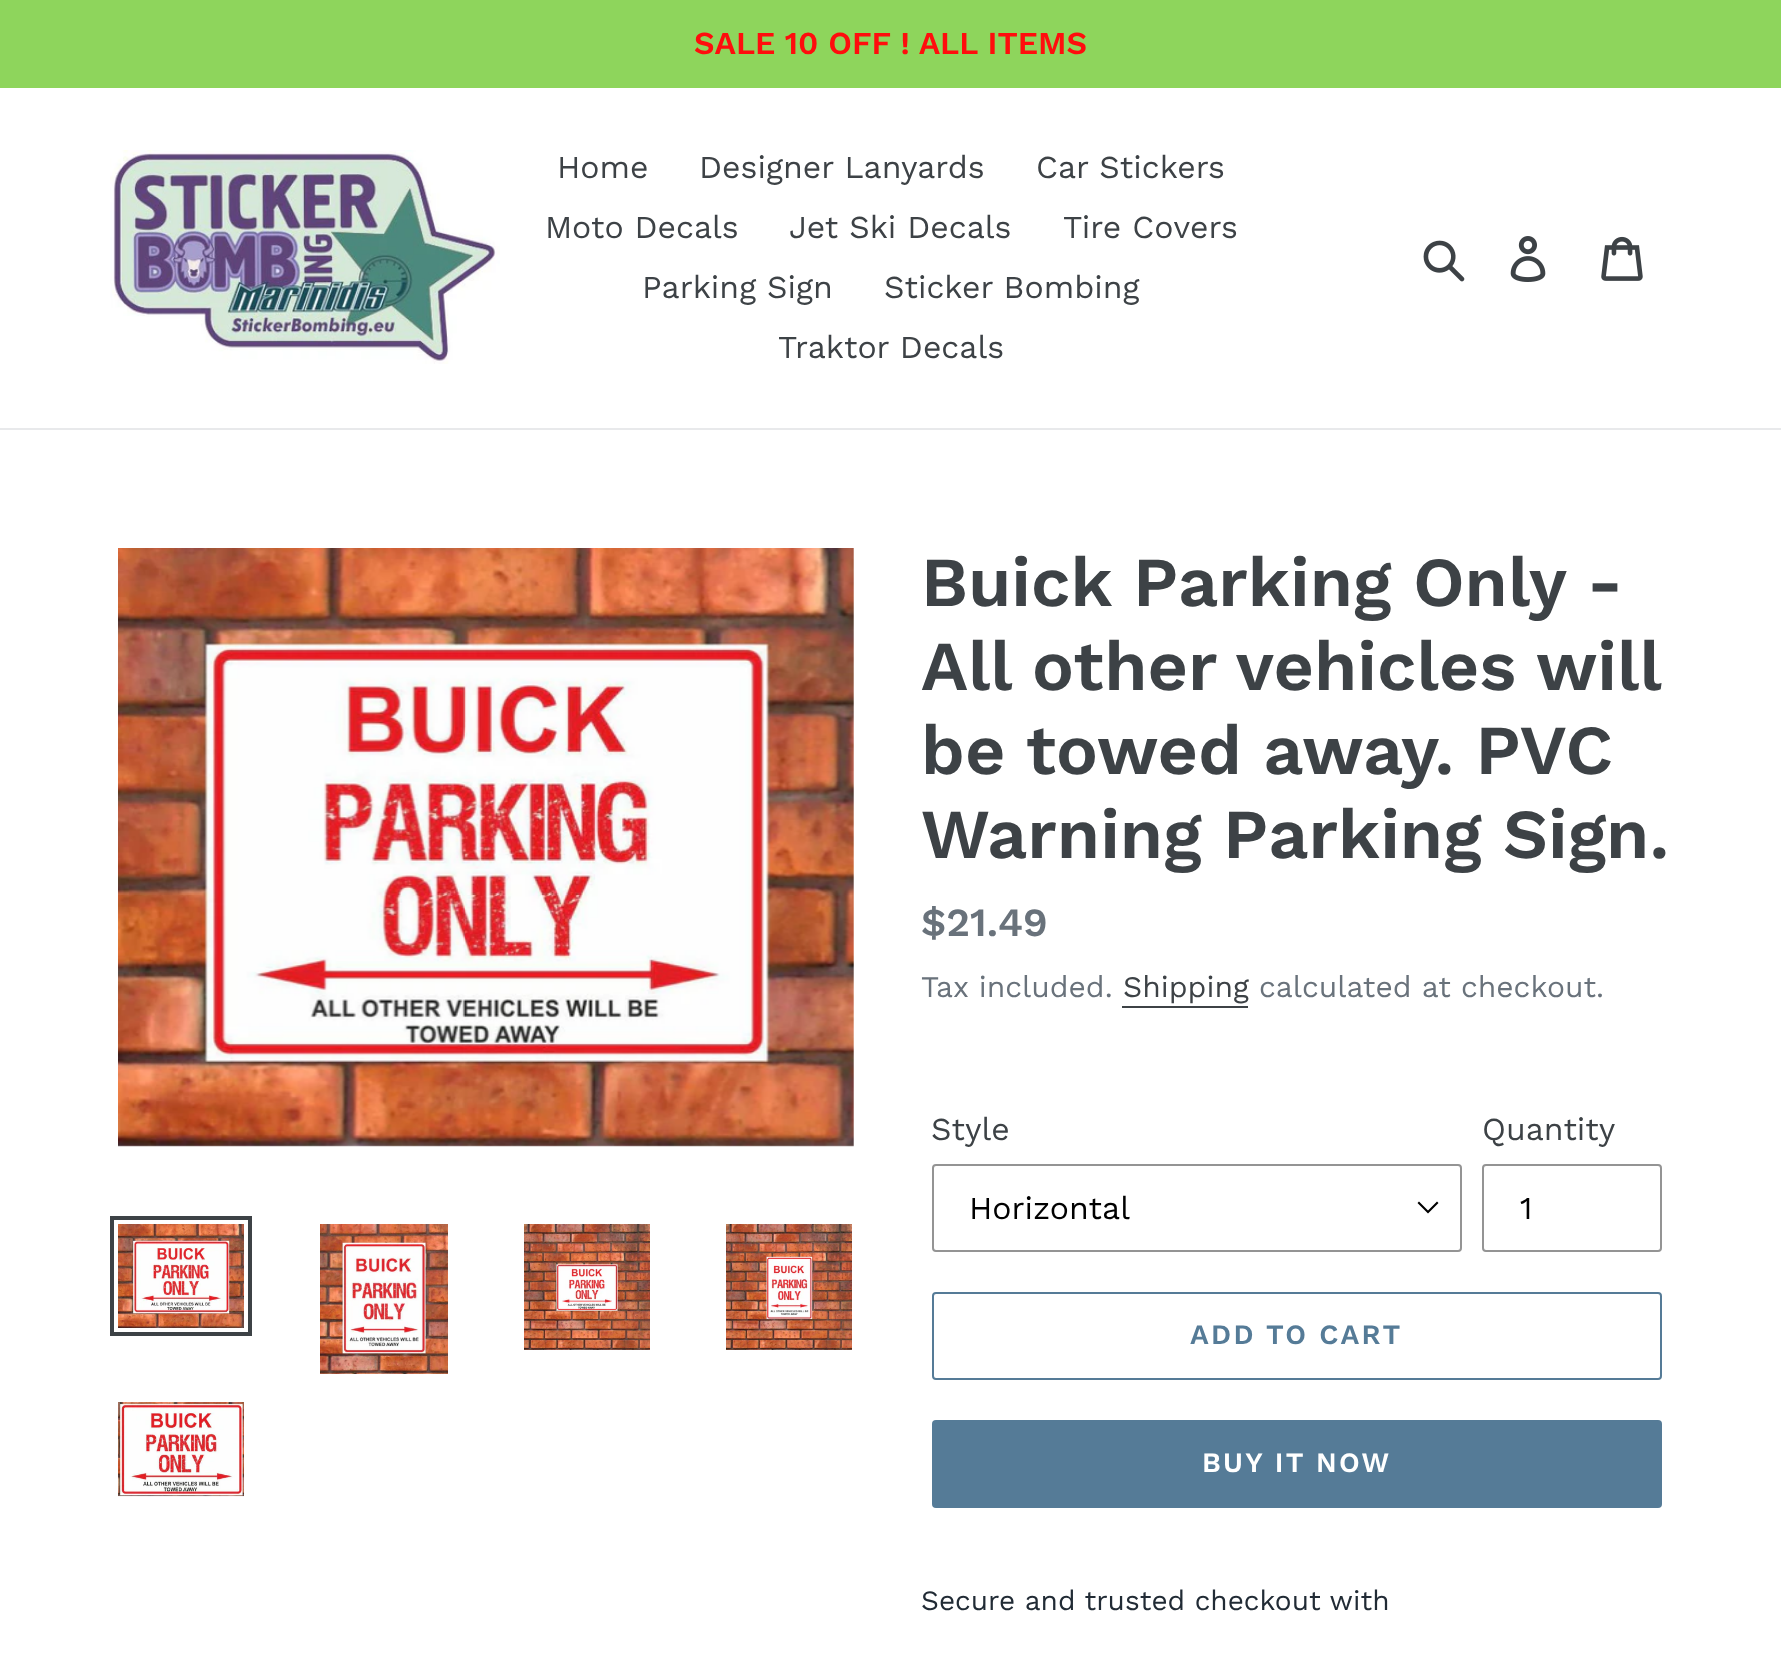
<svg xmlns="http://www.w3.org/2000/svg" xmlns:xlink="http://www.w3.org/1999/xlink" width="1781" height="1674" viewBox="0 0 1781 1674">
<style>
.cls-1{font:600 32px Work Sans;fill:#ff0d0d}
.cls-2{font:32px Work Sans;fill:#3d4246}
.cls-3{font:600 70px Work Sans;fill:#3d4246}
.cls-4{font:600 40px Work Sans;fill:#69727b}
.cls-5{font:30px Work Sans;fill:#69727b}
.cls-6{font:30px Work Sans;fill:#3d4246}
.cls-7{font:32px Work Sans;fill:#000000}
.cls-8{font:600 28px Work Sans;letter-spacing:2.25px;fill:#557b97}
.cls-9{font:600 28px Work Sans;letter-spacing:2.25px;fill:#ffffff}
.cls-10{font:28px Work Sans;fill:#212b35}
</style>
<rect width="100%" height="100%" fill="#ffffff"/>
<rect fill="#8ed55c" x="0" y="0" width="1781" height="88"/>
<rect fill="#e8e9eb" x="0" y="428" width="1781" height="2"/>
<image xlink:href="image0.png" x="110" y="150" width="390" height="214"/>
<image xlink:href="image1.png" x="1423" y="240" width="42" height="42"/>
<image xlink:href="image2.png" x="1510" y="236" width="36" height="46"/>
<image xlink:href="image3.png" x="1601" y="236" width="42" height="45"/>
<image xlink:href="image4.png" x="118" y="548" width="736" height="599"/>
<rect fill="none" stroke="#3d4246" stroke-width="4" x="112" y="1218" width="138" height="116"/>
<image xlink:href="image5.png" x="118" y="1224" width="126" height="104"/>
<image xlink:href="image6.png" x="320" y="1224" width="128" height="150"/>
<image xlink:href="image7.png" x="524" y="1224" width="126" height="126"/>
<image xlink:href="image8.png" x="726" y="1224" width="126" height="126"/>
<image xlink:href="image9.png" x="118" y="1402" width="126" height="95"/>
<rect fill="#3d4246" x="1122" y="1006" width="126" height="2"/>
<path fill="#000000" d="M1428 1213.5L1417.5 1203L1419 1201.5L1428 1210.5L1437 1201.5L1438.5 1203Z"/>
<rect fill="none" stroke="#949494" stroke-width="2" x="933" y="1165" width="528" height="86" rx="3"/>
<rect fill="none" stroke="#949494" stroke-width="2" x="1483" y="1165" width="178" height="86" rx="3"/>
<rect fill="none" stroke="#557b97" stroke-width="2" x="933" y="1293" width="728" height="86" rx="3"/>
<rect fill="#557b97" x="932" y="1420" width="730" height="88" rx="4"/>
<text class="cls-1" x="694" y="54">SALE 10 OFF ! ALL ITEMS</text>
<text class="cls-2" x="557" y="178">Home</text>
<text class="cls-2" x="699" y="178">Designer Lanyards</text>
<text class="cls-2" x="1036" y="178">Car Stickers</text>
<text class="cls-2" x="545" y="238">Moto Decals</text>
<text class="cls-2" x="789" y="238">Jet Ski Decals</text>
<text class="cls-2" x="1063" y="238">Tire Covers</text>
<text class="cls-2" x="642" y="298">Parking Sign</text>
<text class="cls-2" x="884" y="298">Sticker Bombing</text>
<text class="cls-2" x="778" y="358">Traktor Decals</text>
<text class="cls-3"><tspan x="921" y="606">Buick Parking Only -</tspan><tspan x="921" y="690" word-spacing="-0.5">All other vehicles will</tspan><tspan x="921" y="774">be towed away. PVC</tspan><tspan x="921" y="858">Warning Parking Sign.</tspan></text>
<text class="cls-4" x="921" y="936">$21.49</text>
<text class="cls-5" x="921" y="997">Tax included.</text>
<text class="cls-6" x="1123" y="997">Shipping</text>
<text class="cls-5" x="1259" y="997">calculated at checkout.</text>
<text class="cls-2" x="931" y="1140">Style</text>
<text class="cls-7" x="969" y="1219">Horizontal</text>
<text class="cls-2" x="1482" y="1140">Quantity</text>
<text class="cls-7" x="1520" y="1219">1</text>
<text class="cls-8" x="1190" y="1344">ADD TO CART</text>
<text class="cls-9" x="1202" y="1472">BUY IT NOW</text>
<text class="cls-10" x="921" y="1610">Secure and trusted checkout with</text>
</svg>
